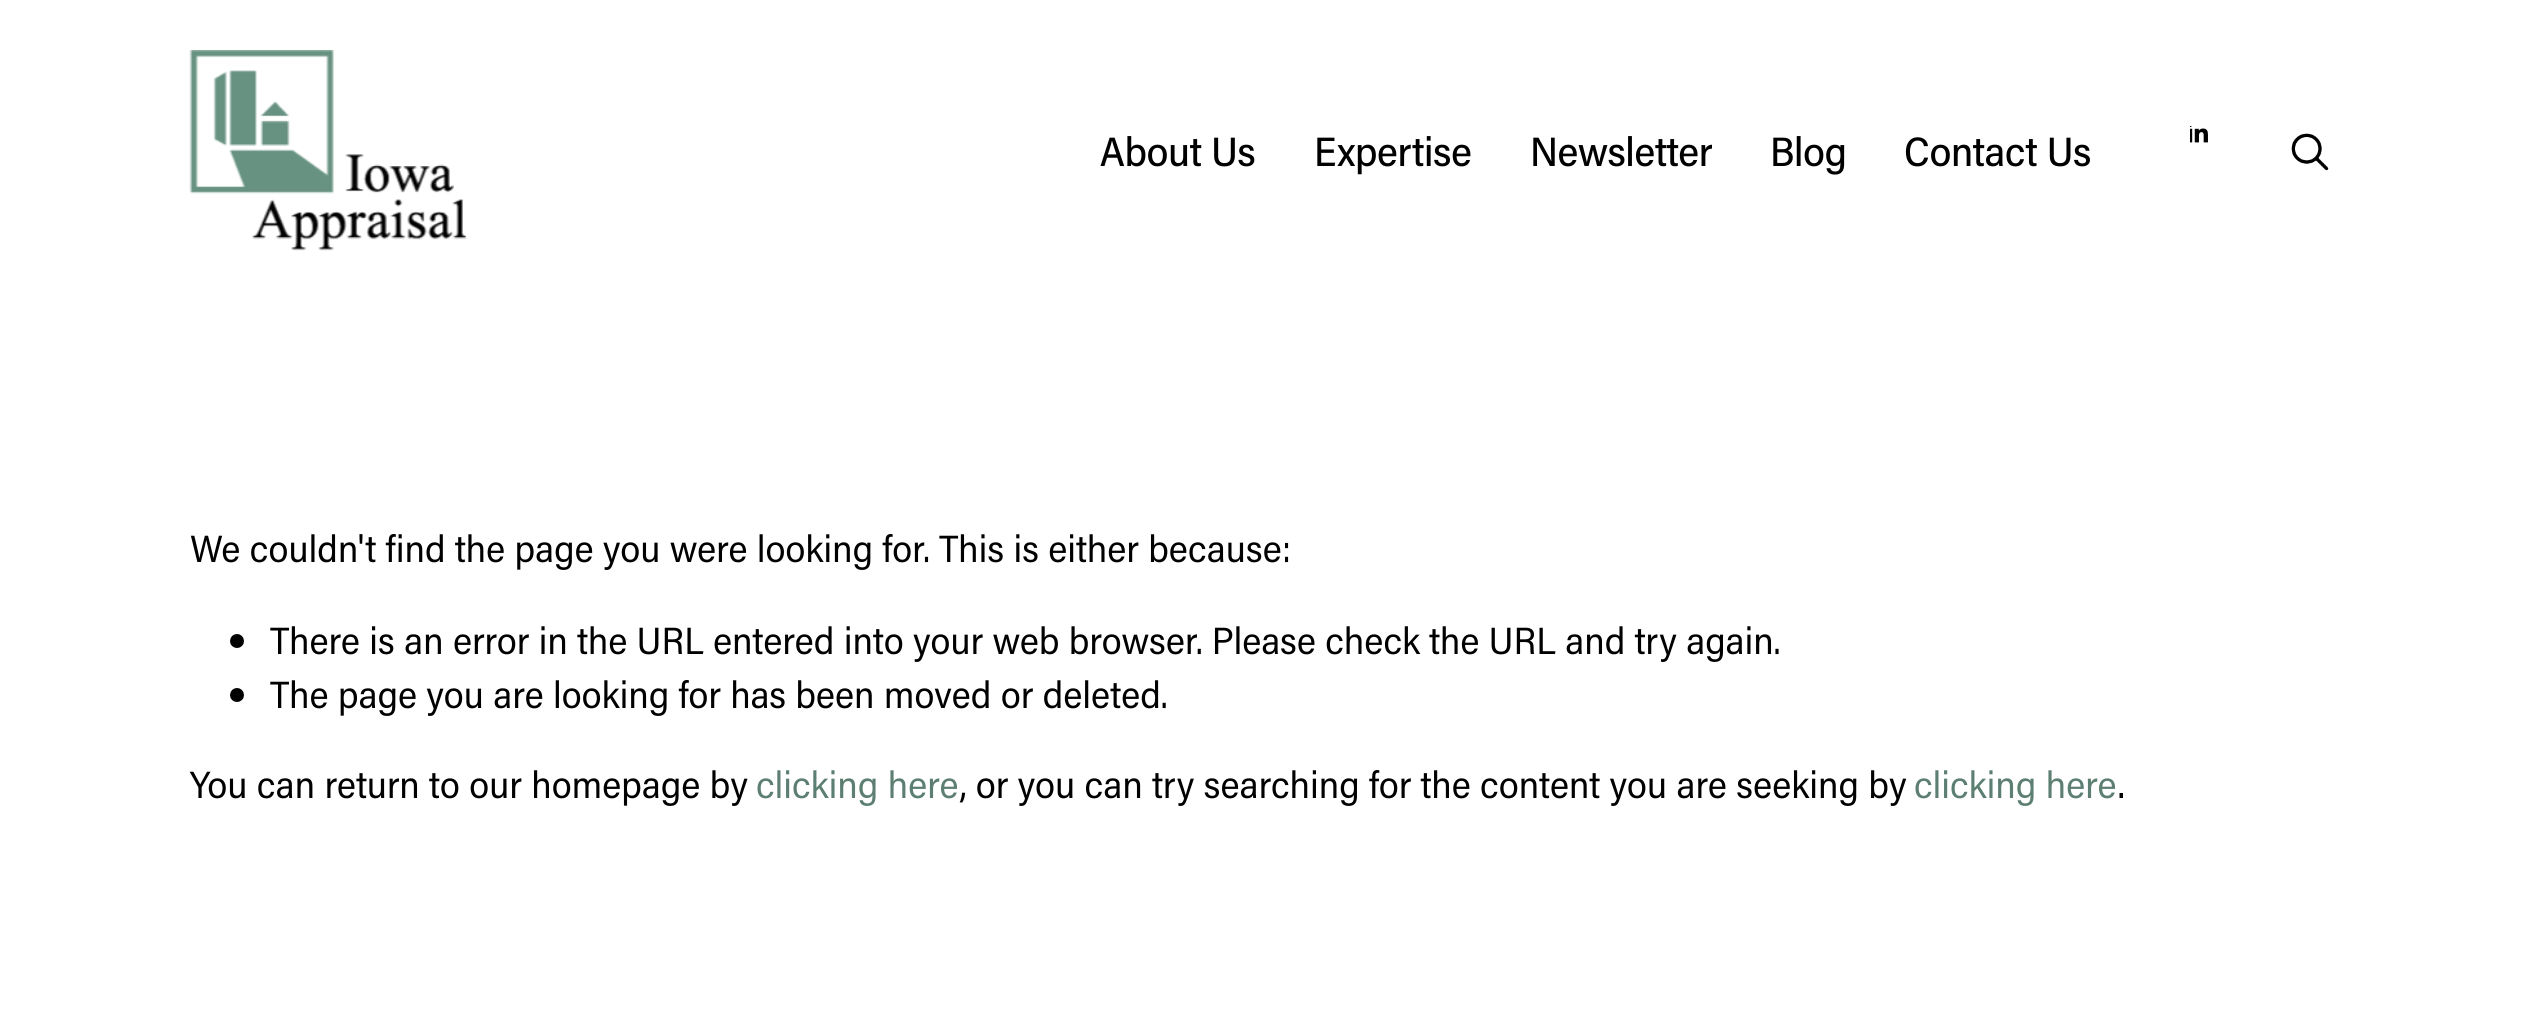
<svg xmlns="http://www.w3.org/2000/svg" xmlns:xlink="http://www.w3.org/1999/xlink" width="2530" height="1017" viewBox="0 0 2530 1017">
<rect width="100%" height="100%" fill="#ffffff"/>
<image xlink:href="image0.png" x="189" y="50" width="277" height="201"/>
<image xlink:href="image1.png" x="1100" y="136" width="155" height="31"/>
<image xlink:href="image2.png" x="1317" y="136" width="154" height="39"/>
<image xlink:href="image3.png" x="1533" y="136" width="179" height="31"/>
<image xlink:href="image4.png" x="1773" y="136" width="72" height="39"/>
<image xlink:href="image5.png" x="1905" y="137" width="185" height="30"/>
<image xlink:href="image6.png" x="2190" y="126" width="18" height="17"/>
<image xlink:href="image7.png" x="2291" y="133" width="38" height="38"/>
<image xlink:href="image8.png" x="190" y="534" width="1099" height="36"/>
<circle fill="#000000" cx="237" cy="641" r="7"/>
<image xlink:href="image9.png" x="270" y="626" width="1509" height="36"/>
<circle fill="#000000" cx="237" cy="695" r="7"/>
<image xlink:href="image10.png" x="270" y="680" width="896" height="36"/>
<image xlink:href="image11.png" x="189" y="770" width="559" height="36"/>
<image xlink:href="image12.png" x="757" y="770" width="201" height="36"/>
<image xlink:href="image13.png" x="959" y="770" width="511" height="36"/>
<image xlink:href="image14.png" x="1481" y="770" width="426" height="36"/>
<image xlink:href="image12.png" x="1915" y="770" width="201" height="36"/>
<path fill="#000000" d="M2123 798V793H2119.5V798Z"/>
</svg>
